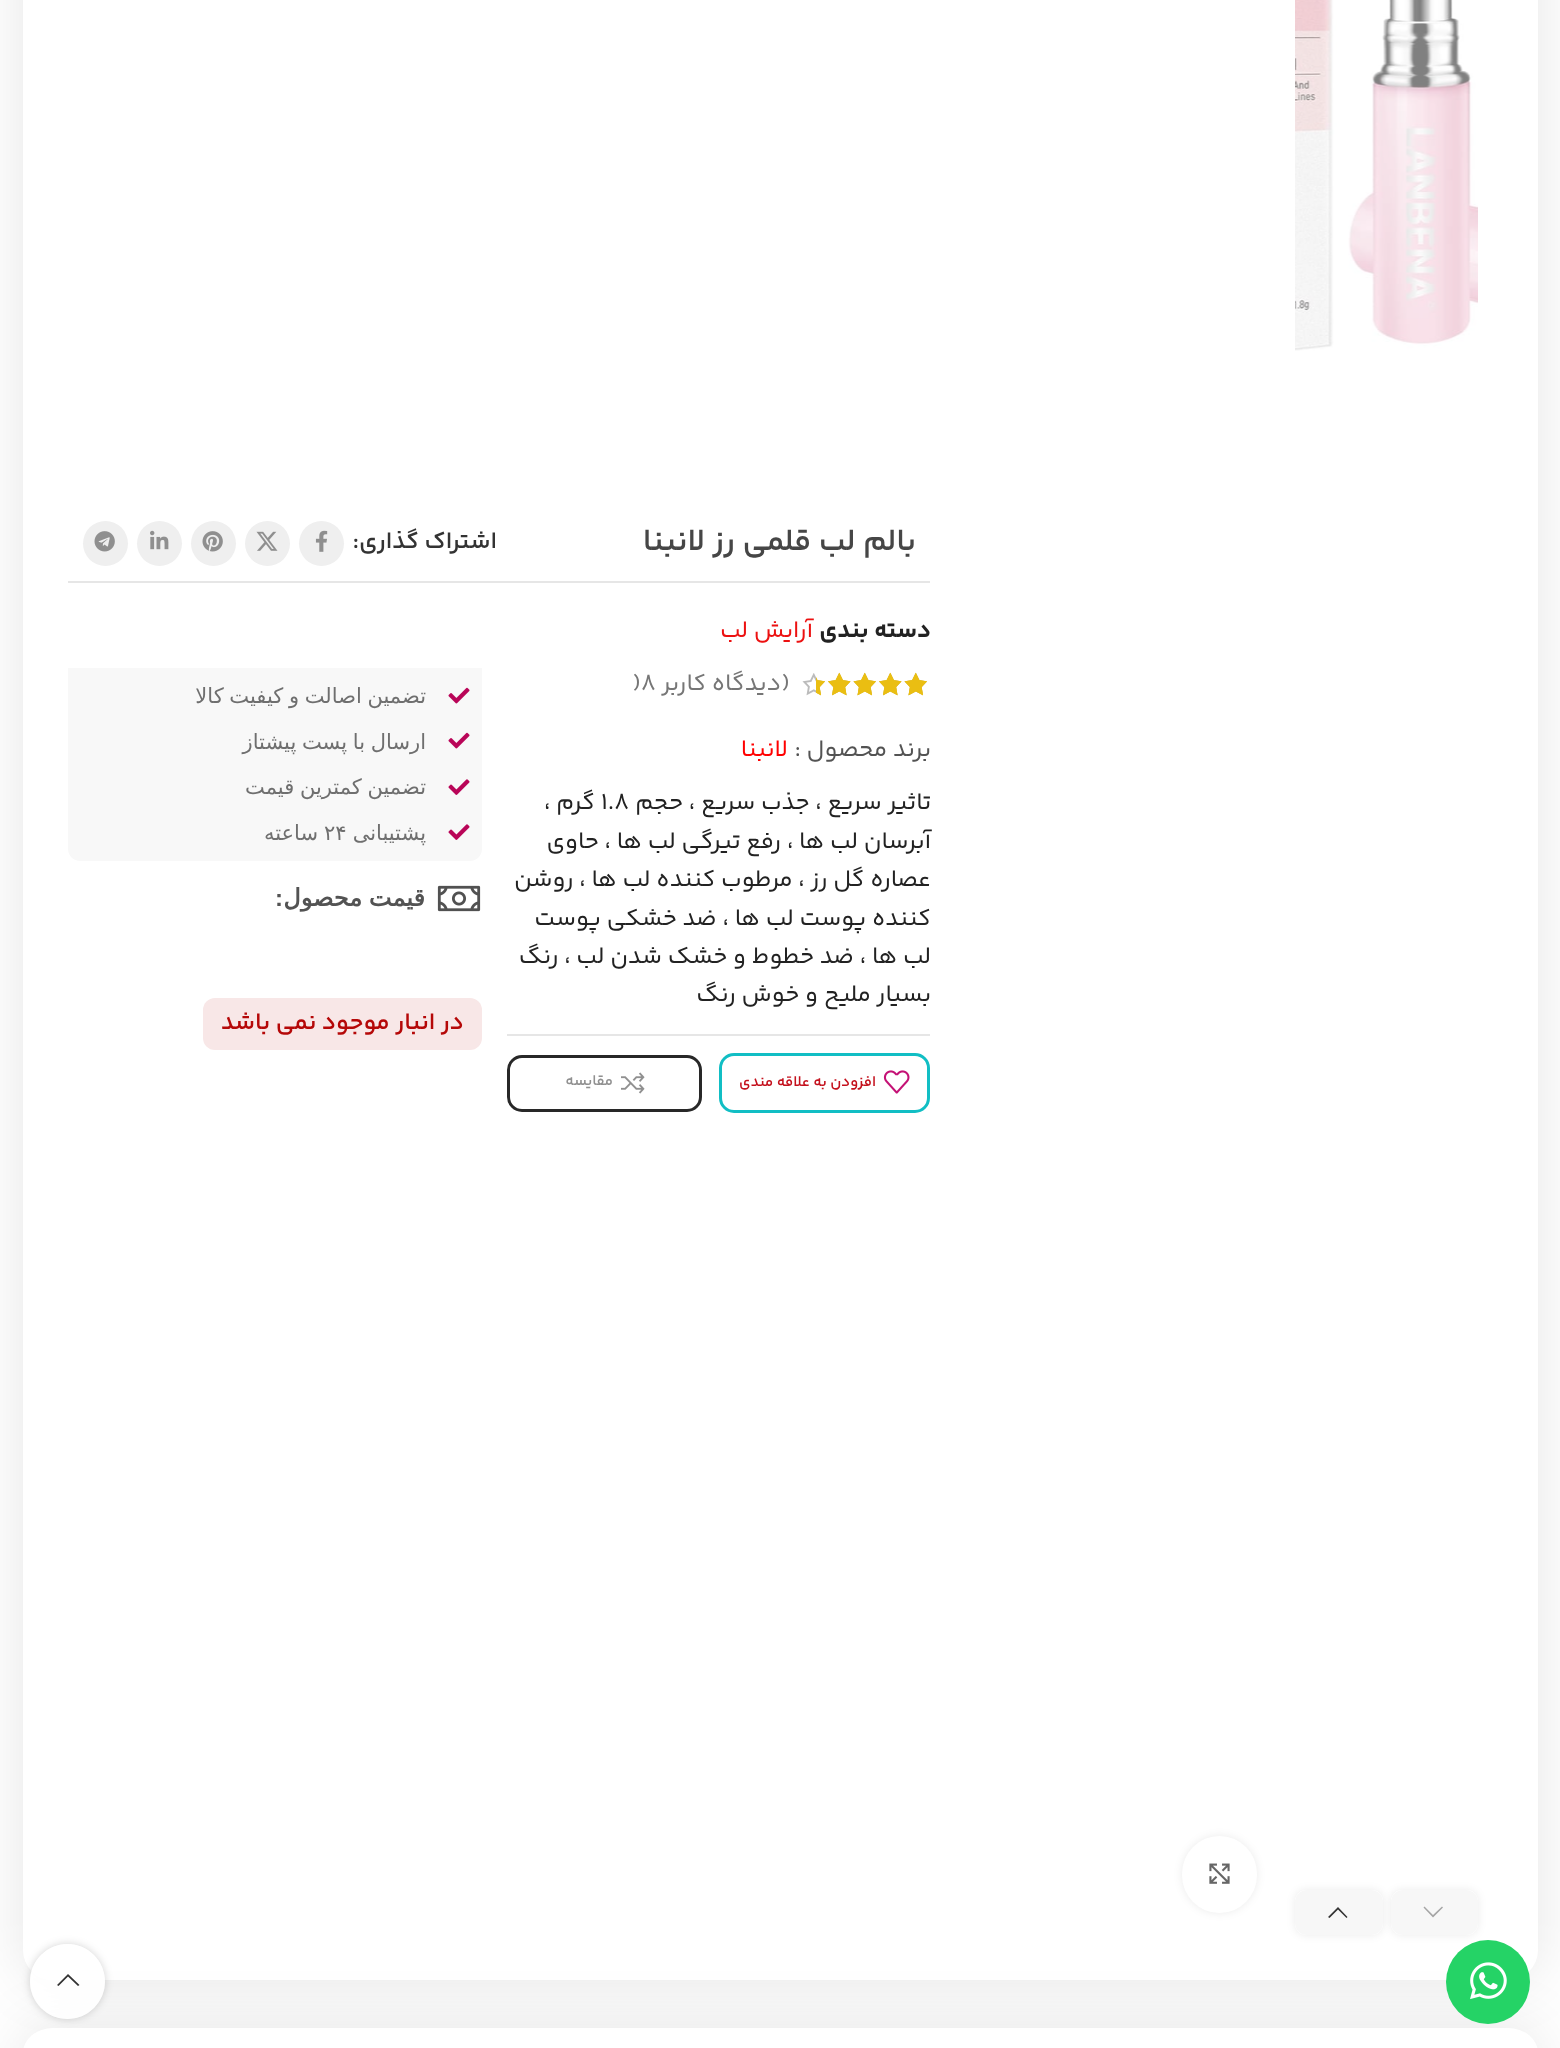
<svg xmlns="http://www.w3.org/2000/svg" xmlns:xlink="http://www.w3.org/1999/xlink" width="1560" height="2048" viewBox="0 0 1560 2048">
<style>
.cls-1{font:600 31.5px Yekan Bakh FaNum;direction:rtl;fill:#464646}
.cls-2{font:600 24px Yekan Bakh FaNum;direction:rtl;fill:#333333}
.cls-3{font:bold 24px Yekan Bakh FaNum;direction:rtl;fill:#222222}
.cls-4{font:24px Yekan Bakh FaNum;direction:rtl;fill:#ec1111}
.cls-5{font:24px Yekan Bakh FaNum;direction:rtl;fill:#767676}
.cls-6{font:24px Yekan Bakh FaNum;fill:#767676}
.cls-7{font:24px Yekan Bakh FaNum;direction:rtl;fill:#535353}
.cls-8{font:24px Yekan Bakh FaNum;direction:rtl;fill:#ff0000}
.cls-9{font:24px Yekan Bakh FaNum;direction:rtl;fill:#222222}
.cls-10{font:24px Yekan Bakh FaNum;fill:#222222}
.cls-11{font:600 15px Yekan Bakh FaNum;direction:rtl;fill:#c4111d}
.cls-12{font:600 15px Yekan Bakh FaNum;direction:rtl;fill:#909090}
.cls-13{font:21px DejaVu Sans;direction:rtl;fill:#6f6f6f}
.cls-14{font:21px DejaVu Sans;fill:#6f6f6f}
.cls-15{font:bold 24px DejaVu Sans;direction:rtl;fill:#535353}
.cls-16{font:bold 24px Liberation Sans;direction:rtl;fill:#535353}
.cls-17{font:600 24px Yekan Bakh FaNum;direction:rtl;fill:#b50808}
</style>
<defs>
<clipPath id="clip1"><path d="M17 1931H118V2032H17ZM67.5 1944C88 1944 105 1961 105 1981.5C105 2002 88 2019 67.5 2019C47 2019 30 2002 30 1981.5C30 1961 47 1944 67.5 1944Z" clip-rule="evenodd"/></clipPath>
</defs>
<rect width="100%" height="100%" fill="#ffffff"/>
<rect fill="#000000" fill-opacity="0.1" filter="blur(30px)" x="23" y="-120" width="1515" height="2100" rx="30"/>
<rect fill="#ffffff" x="23" y="-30" width="1515" height="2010" rx="30"/>
<image xlink:href="image0.png" x="1295" y="0" width="183" height="351"/>
<rect fill="#000000" fill-opacity="0.08" filter="blur(4px)" x="1391" y="1890" width="87" height="45" rx="11"/>
<rect fill="#ffffff" x="1391" y="1890" width="87" height="45" rx="11"/>
<rect fill="#f7f7f7" x="1391" y="1890" width="87" height="45" rx="12"/>
<path fill="#a5a5a5" d="M1442 1906.5L1433 1915L1424.5 1906.5L1423.5 1907.5L1433 1917.5L1443 1907.5Z"/>
<rect fill="#000000" fill-opacity="0.08" filter="blur(4px)" x="1295" y="1890" width="88" height="45" rx="11"/>
<rect fill="#ffffff" x="1295" y="1890" width="88" height="45" rx="11"/>
<rect fill="#f7f7f7" x="1295" y="1890" width="88" height="45" rx="12"/>
<path fill="#333333" d="M1346.5 1918L1347.5 1917L1338 1907L1328 1917L1329.5 1918L1338 1909.5Z"/>
<rect fill="#000000" fill-opacity="0.08" filter="blur(4px)" x="1182" y="1836" width="75" height="77" rx="37.5"/>
<rect fill="#ffffff" x="1182" y="1836" width="75" height="77" rx="37.5"/>
<image xlink:href="image1.png" x="1209" y="1863" width="21" height="21"/>
<rect fill="#e6e6e6" x="68" y="581" width="862" height="2"/>
<circle fill="#efefef" cx="321.5" cy="543.5" r="22.5"/>
<image xlink:href="image2.png" x="315" y="530" width="13" height="22"/>
<circle fill="#efefef" cx="267.5" cy="543.5" r="22.5"/>
<image xlink:href="image3.png" x="256" y="531" width="22" height="20"/>
<circle fill="#efefef" cx="213.5" cy="543.5" r="22.5"/>
<image xlink:href="image4.png" x="202" y="531" width="21" height="21"/>
<circle fill="#efefef" cx="159.5" cy="543.5" r="22.5"/>
<image xlink:href="image5.png" x="150" y="530" width="19" height="20"/>
<circle fill="#efefef" cx="105.5" cy="543.5" r="22.5"/>
<image xlink:href="image6.png" x="94" y="531" width="21" height="21"/>
<image xlink:href="image9.png" x="802" y="673" width="125" height="23"/>
<image xlink:href="image7.png" x="816" y="672" width="111" height="24"/>
<image xlink:href="image8.png" x="816" y="672" width="111" height="24"/>
<rect fill="#e6e6e6" x="507" y="1034" width="423" height="2"/>
<rect fill="none" stroke="#11bec4" stroke-width="3" x="720.5" y="1054.5" width="208" height="57" rx="13.5"/>
<image xlink:href="image10.png" x="883" y="1070" width="27" height="24"/>
<rect fill="none" stroke="#282828" stroke-width="3" x="508.5" y="1056.5" width="192" height="54" rx="13.5"/>
<image xlink:href="image11.png" x="621" y="1072" width="24" height="22"/>
<path fill="#f8f8f8" d="M68 668H482V849C482 855.5 476.5 861 470 861H80C73.5 861 68 855.5 68 849Z"/>
<image xlink:href="image12.png" x="448" y="687" width="22" height="17"/>
<image xlink:href="image12.png" x="448" y="732" width="22" height="17"/>
<image xlink:href="image13.png" x="448" y="779" width="22" height="16"/>
<image xlink:href="image13.png" x="448" y="824" width="22" height="16"/>
<image xlink:href="image14.png" x="437" y="885" width="44" height="27"/>
<rect fill="#f8e7e7" x="203" y="998" width="279" height="52" rx="12"/>
<rect fill="#000000" fill-opacity="0.1" filter="blur(30px)" x="23" y="2028" width="1515" height="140" rx="30"/>
<rect fill="#ffffff" x="23" y="2028" width="1515" height="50" rx="30"/>
<circle fill="#25d366" cx="1488" cy="1982" r="42"/>
<image xlink:href="image15.png" x="1470" y="1962" width="37" height="38"/>
<g clip-path="url(#clip1)">
<rect fill="#000000" fill-opacity="0.17" filter="blur(4px)" x="30" y="1944" width="75" height="75" rx="37.5"/>
</g>
<circle fill="#ffffff" fill-opacity="0.9" cx="67.5" cy="1981.5" r="37.5"/>
<path fill="#333333" d="M78 1986L79.5 1985L68 1974L57 1985L58.5 1986L68 1976.5Z"/>
<text class="cls-1" x="916" y="550">بالم لب قلمی رز لانبنا</text>
<text class="cls-2" x="497" y="548">اشتراک گذاری:</text>
<text class="cls-3" x="931" y="637">دسته بندی</text>
<text class="cls-4" x="813" y="637">آرایش لب</text>
<text class="cls-5" x="790" y="690">(دیدگاه کاربر</text>
<text class="cls-6" x="641" y="690">8</text>
<text class="cls-6" x="632" y="690">)</text>
<text class="cls-7" x="931" y="756">برند محصول :</text>
<text class="cls-8" x="788" y="756">لانبنا</text>
<text class="cls-9" x="931" y="809">تاثیر سریع ، جذب سریع ، حجم</text>
<text class="cls-10" x="601" y="809">1.8</text>
<text class="cls-9" x="595" y="809">گرم ،</text>
<text class="cls-9"><tspan x="931" y="848">آبرسان لب ها ، رفع تیرگی لب ها ، حاوی</tspan><tspan x="931" y="886">عصاره گل رز ، مرطوب کننده لب ها ، روشن</tspan><tspan x="931" y="925">کننده پوست لب ها ، ضد خشکی پوست</tspan><tspan x="931" y="963">لب ها ، ضد خطوط و خشک شدن لب ، رنگ</tspan><tspan x="931" y="1001">بسیار ملیح و خوش رنگ</tspan></text>
<text class="cls-11" x="876" y="1086">افزودن به علاقه مندی</text>
<text class="cls-12" x="613" y="1085">مقایسه</text>
<text class="cls-13" x="426" y="703" word-spacing="-1">تضمین اصالت و کیفیت کالا</text>
<text class="cls-13" x="426" y="749" word-spacing="-1">ارسال با پست پیشتاز</text>
<text class="cls-13" x="426" y="794" word-spacing="-1">تضمین کمترین قیمت</text>
<text class="cls-13" x="426" y="840">پشتیبانی</text>
<text class="cls-14" x="324" y="840">۲۴</text>
<text class="cls-13" x="318" y="840">ساعته</text>
<text class="cls-15" x="425" y="906" word-spacing="-1">قیمت محصول</text>
<text class="cls-16" x="283" y="906">:</text>
<text class="cls-17" x="464" y="1029">در انبار موجود نمی باشد</text>
</svg>
